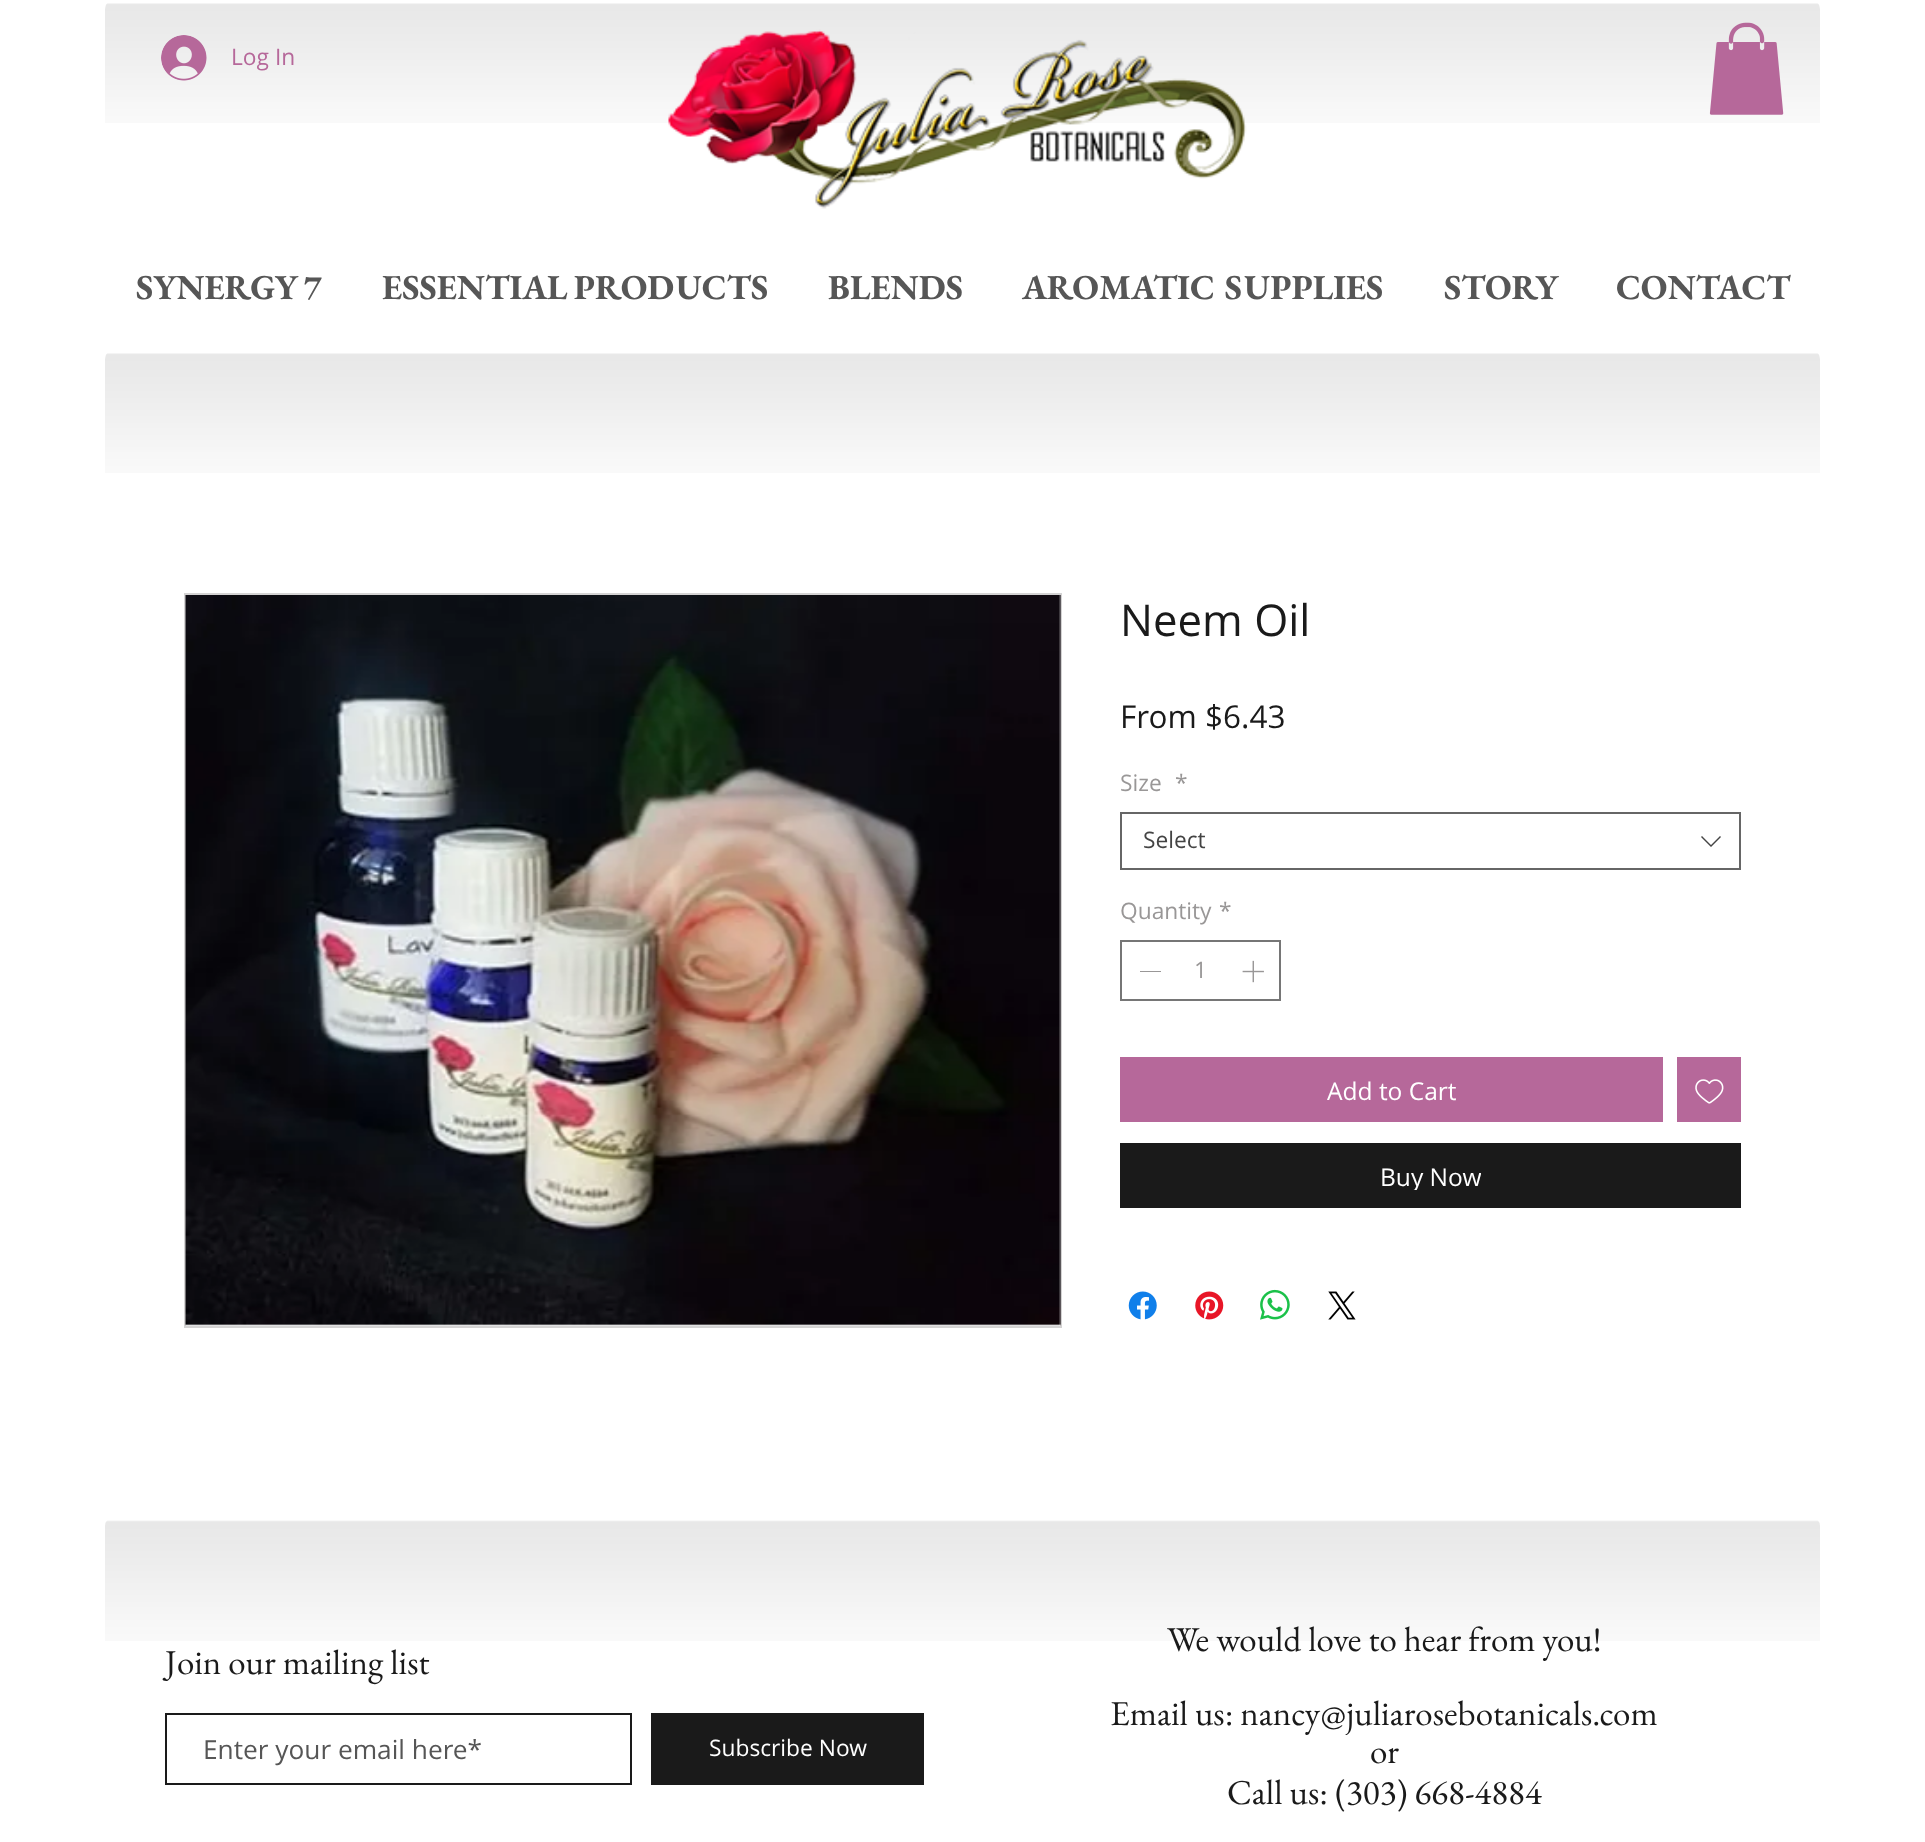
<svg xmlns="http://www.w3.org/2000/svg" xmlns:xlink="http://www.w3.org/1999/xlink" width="1925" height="1842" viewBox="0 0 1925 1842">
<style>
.cls-1{font:22.75px Open Sans;fill:#b6689a}
.cls-2{font:bold 35px EB Garamond;fill:#565656}
.cls-3{font:43.75px Open Sans;fill:#1a1a1a}
.cls-4{font:31.5px Open Sans;fill:#1a1a1a}
.cls-5{font:22.75px Open Sans;fill:#999797}
.cls-6{font:22.75px Open Sans;fill:#444444}
.cls-7{font:24.5px Open Sans;fill:#ffffff}
.cls-8{font:35px EB Garamond;fill:#1a1a1a}
.cls-9{font:26.25px Open Sans;fill:#565656}
.cls-10{font:22.75px Open Sans;fill:#ffffff}
</style>
<defs>
<clipPath id="clip1"><rect x="1381" y="1160" width="100" height="30"/></clipPath>
</defs>
<rect width="100%" height="100%" fill="#ffffff"/>
<image xlink:href="image0.png" x="105" y="3" width="1715" height="120"/>
<image xlink:href="image1.png" x="161" y="35" width="46" height="46"/>
<image xlink:href="image2.png" x="668" y="29" width="579" height="180"/>
<image xlink:href="image3.png" x="1709" y="22" width="75" height="93"/>
<image xlink:href="image0.png" x="105" y="353" width="1715" height="120"/>
<rect fill="none" stroke="#d4d3d3" stroke-width="2" x="185" y="594" width="876" height="733"/>
<image xlink:href="image4.png" x="185" y="595" width="876" height="731"/>
<rect fill="none" stroke="#666666" stroke-width="2" x="1121" y="813" width="619" height="56"/>
<path fill="#444444" fill-rule="evenodd" d="M1720 836L1721 837L1711 847L1701 837L1702 836L1711 845Z"/>
<rect fill="none" stroke="#767676" stroke-width="2" x="1121" y="941" width="159" height="59"/>
<rect fill="#999797" x="1140" y="971" width="21" height="1"/>
<image xlink:href="image5.png" x="1242" y="960" width="22" height="23"/>
<rect fill="#b6689a" x="1120" y="1057" width="543" height="65"/>
<rect fill="#b6689a" x="1677" y="1057" width="64" height="65"/>
<image xlink:href="image6.png" x="1695" y="1079" width="29" height="25"/>
<rect fill="#1a1a1a" x="1120" y="1143" width="621" height="65"/>
<image xlink:href="image7.png" x="1128" y="1291" width="29" height="29"/>
<image xlink:href="image8.png" x="1195" y="1291" width="29" height="29"/>
<image xlink:href="image9.png" x="1260" y="1289" width="30" height="31"/>
<image xlink:href="image10.png" x="1328" y="1291" width="28" height="29"/>
<image xlink:href="image11.png" x="105" y="1520" width="1715" height="121"/>
<rect fill="none" stroke="#1a1a1a" stroke-width="2" x="166" y="1714" width="465" height="70"/>
<rect fill="#1a1a1a" x="651" y="1713" width="273" height="72"/>
<text class="cls-1" x="231" y="65">Log In</text>
<text class="cls-2" x="136" y="299">SYNERGY 7</text>
<text class="cls-2" x="382" y="299">ESSENTIAL PRODUCTS</text>
<text class="cls-2" x="828" y="299">BLENDS</text>
<text class="cls-2" x="1022" y="299">AROMATIC SUPPLIES</text>
<text class="cls-2" x="1444" y="299">STORY</text>
<text class="cls-2" x="1616" y="299">CONTACT</text>
<text class="cls-3" x="1120" y="636">Neem Oil</text>
<text class="cls-4" x="1120" y="728">From $6.43</text>
<text class="cls-5" x="1120" y="791">Size</text>
<text class="cls-5" x="1175" y="791">*</text>
<text class="cls-6" x="1143" y="848">Select</text>
<text class="cls-5" x="1120" y="919">Quantity</text>
<text class="cls-5" x="1219" y="919">*</text>
<text class="cls-5" x="1194" y="978">1</text>
<text class="cls-7" x="1327" y="1100">Add to Cart</text>
<g clip-path="url(#clip1)">
<text class="cls-7" x="1380" y="1186">Buy Now</text>
</g>
<text class="cls-8" x="165" y="1674">Join our mailing list</text>
<text class="cls-9" x="203" y="1759">Enter your email here*</text>
<text class="cls-10" x="709" y="1756">Subscribe Now</text>
<text class="cls-8" x="1167" y="1651">We would love to hear from you!</text>
<text class="cls-8" x="1110" y="1725">Email us: nancy@juliarosebotanicals.com</text>
<text class="cls-8" x="1370" y="1763">or</text>
<text class="cls-8" x="1227" y="1804">Call us: (303) 668-4884</text>
</svg>
